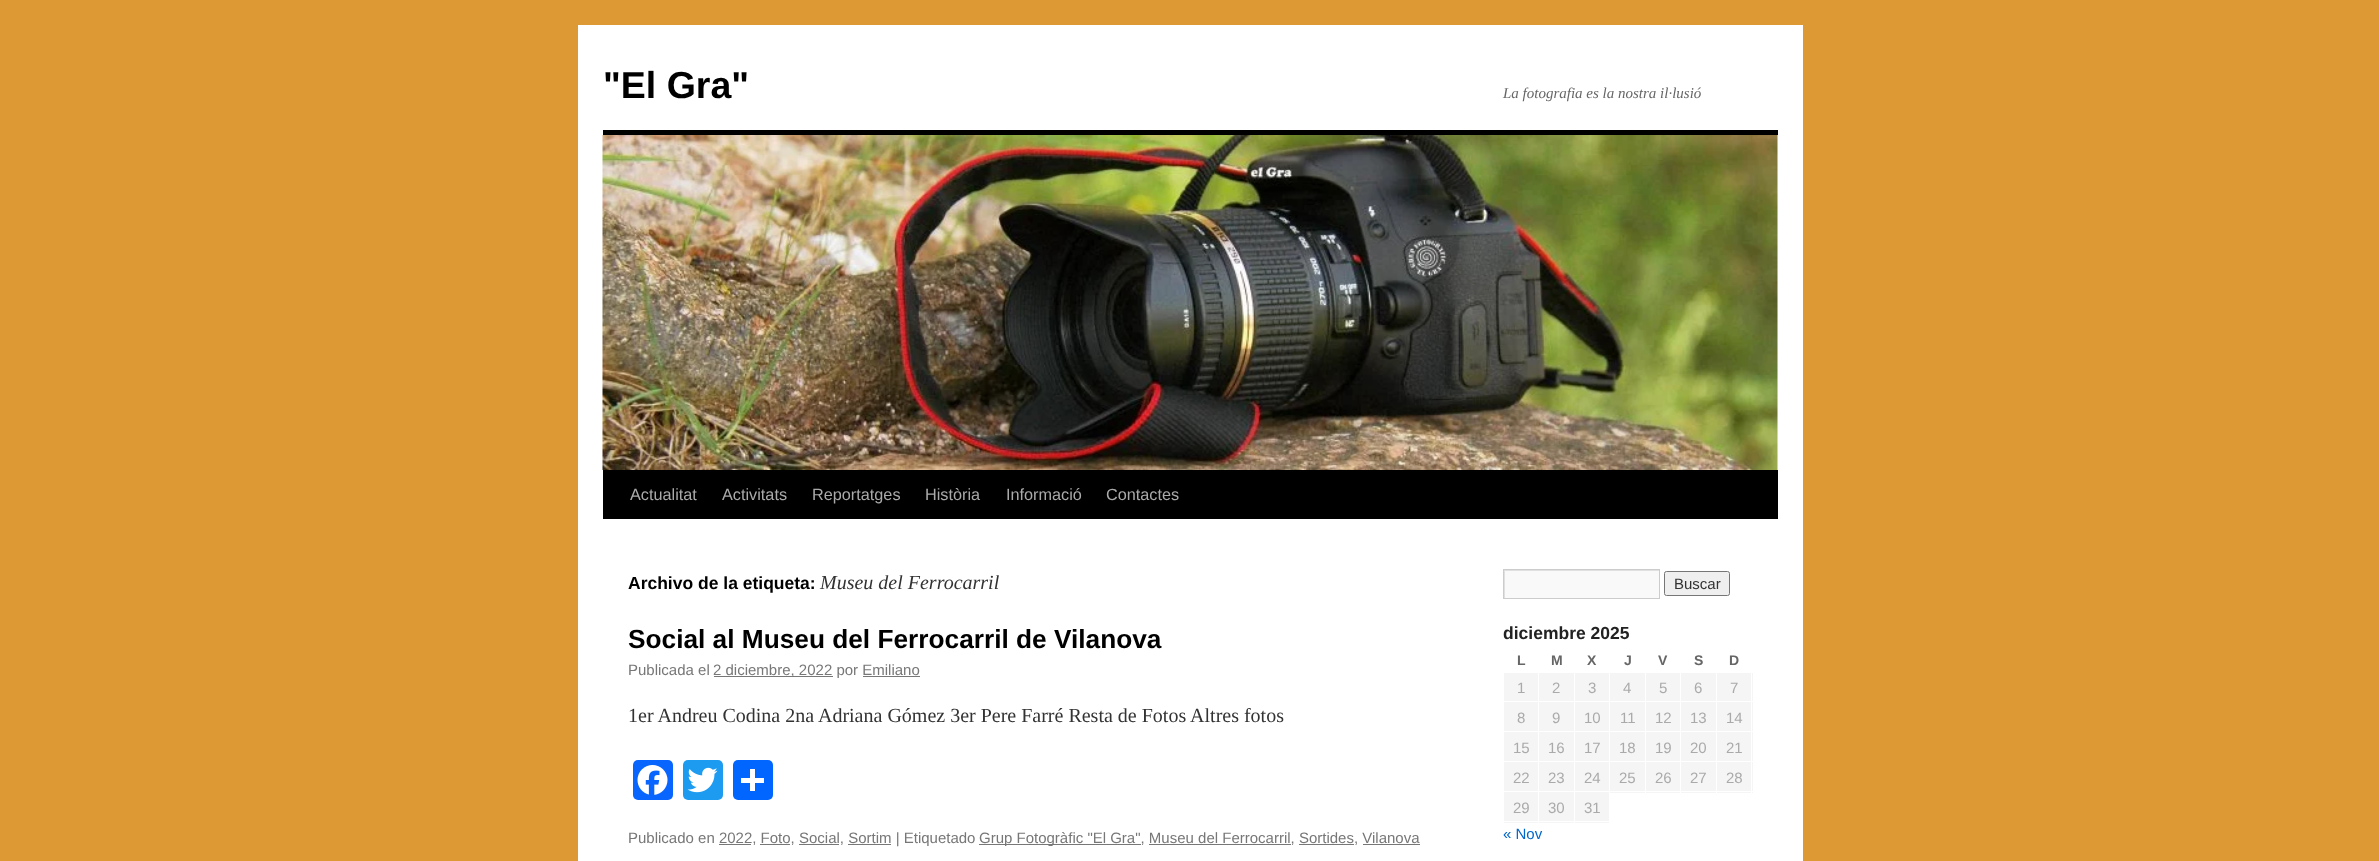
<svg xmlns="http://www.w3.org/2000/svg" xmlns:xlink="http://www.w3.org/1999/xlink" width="2379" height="861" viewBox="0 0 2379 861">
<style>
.cls-1{font:bold 37.5px Liberation Sans;fill:#000000}
.cls-2{font:italic 15px Liberation Serif;fill:#666666}
.cls-3{font:16.25px Liberation Sans;fill:#aaaaaa}
.cls-4{font:bold 17.5px Liberation Sans;fill:#000000}
.cls-5{font:italic 20px Liberation Serif;fill:#333333}
.cls-6{font:bold 26.25px Liberation Sans;fill:#000000}
.cls-7{font:15px Liberation Sans;fill:#777777}
.cls-8{font:20px Liberation Serif;fill:#333333}
.cls-9{font:15px Liberation Sans;fill:#333333}
.cls-10{font:bold 17.5px Liberation Sans;fill:#222222}
.cls-11{font:bold 14px Liberation Sans;fill:#666666}
.cls-12{font:15px Liberation Sans;fill:#aaaaaa}
.cls-13{font:15px Liberation Sans;fill:#0066cc}
</style>
<defs>
<clipPath id="clip1"><rect x="1504" y="570" width="155" height="28"/></clipPath>
</defs>
<rect width="100%" height="100%" fill="#dd9933"/>
<rect fill="#ffffff" x="578" y="25" width="1225" height="836"/>
<rect fill="#000000" x="603" y="130" width="1175" height="5"/>
<rect fill="#000000" x="603" y="470" width="1175" height="49"/>
<image xlink:href="image0.png" x="602" y="135" width="1176" height="335"/>
<rect fill="#777777" x="714" y="676" width="119" height="1"/>
<rect fill="#777777" x="863" y="676" width="57" height="1"/>
<rect fill="#0866ff" x="633" y="760" width="40" height="40" rx="5"/>
<image xlink:href="image1.png" x="637" y="765" width="31" height="30"/>
<rect fill="#1d9bf0" x="683" y="760" width="40" height="40" rx="5"/>
<image xlink:href="image2.png" x="687" y="767" width="31" height="26"/>
<rect fill="#0166ff" x="733" y="760" width="40" height="40" rx="5"/>
<rect fill="#ffffff" x="750" y="769" width="5" height="22"/>
<rect fill="#ffffff" x="741" y="778" width="23" height="5"/>
<rect fill="#777777" x="719" y="844" width="32" height="1"/>
<rect fill="#777777" x="760" y="844" width="30" height="1"/>
<rect fill="#777777" x="799" y="844" width="40" height="1"/>
<rect fill="#777777" x="848" y="844" width="43" height="1"/>
<rect fill="#777777" x="979" y="844" width="162" height="1"/>
<rect fill="#777777" x="1149" y="844" width="142" height="1"/>
<rect fill="#777777" x="1299" y="844" width="55" height="1"/>
<rect fill="#777777" x="1363" y="844" width="57" height="1"/>
<rect fill="#f9f9f9" x="1505" y="571" width="154" height="27"/>
<g clip-path="url(#clip1)">
<path fill="#e0e0e0" fill-rule="evenodd" d="M1380 446H1782V721H1380ZM1505 571H1660V599H1505Z"/>
</g>
<rect fill="none" stroke="#cccccc" x="1503.5" y="569.5" width="156" height="29"/>
<rect fill="#efefef" stroke="#767676" x="1664.5" y="571.5" width="65" height="24" rx="2"/>
<rect fill="#f5f5f5" x="1504" y="673" width="34" height="150"/>
<rect fill="#f5f5f5" x="1539" y="673" width="35" height="150"/>
<rect fill="#f5f5f5" x="1575" y="673" width="34" height="150"/>
<rect fill="#f5f5f5" x="1610" y="673" width="35" height="120"/>
<rect fill="#f5f5f5" x="1646" y="673" width="34" height="120"/>
<rect fill="#f5f5f5" x="1681" y="673" width="35" height="120"/>
<rect fill="#f5f5f5" x="1717" y="673" width="36" height="120"/>
<rect fill="#ffffff" x="1503" y="701" width="250" height="1"/>
<rect fill="#ffffff" x="1503" y="731" width="250" height="1"/>
<rect fill="#ffffff" x="1503" y="761" width="250" height="1"/>
<rect fill="#ffffff" x="1503" y="791" width="250" height="1"/>
<rect fill="#ffffff" x="1751" y="791" width="1" height="2"/>
<rect fill="#ffffff" x="1751" y="761" width="1" height="32"/>
<rect fill="#ffffff" x="1751" y="731" width="1" height="32"/>
<rect fill="#ffffff" x="1751" y="671" width="1" height="62"/>
<rect fill="#ffffff" x="1503" y="821" width="107" height="1"/>
<text class="cls-1" x="603" y="98">"El Gra"</text>
<text class="cls-2" x="1503" y="98">La fotografia es la nostra il·lusió</text>
<text class="cls-3" x="630" y="500">Actualitat</text>
<text class="cls-3" x="722" y="500">Activitats</text>
<text class="cls-3" x="812" y="500">Reportatges</text>
<text class="cls-3" x="925" y="500">Història</text>
<text class="cls-3" x="1006" y="500">Informació</text>
<text class="cls-3" x="1106" y="500">Contactes</text>
<text class="cls-4" x="628" y="589">Archivo de la etiqueta:</text>
<text class="cls-5" x="820" y="589">Museu del Ferrocarril</text>
<text class="cls-6" x="628" y="648">Social al Museu del Ferrocarril de Vilanova</text>
<text class="cls-7" x="628" y="675">Publicada el</text>
<text class="cls-7" x="713" y="675">2 diciembre, 2022 por Emiliano</text>
<text class="cls-8" x="628" y="722">1er Andreu Codina 2na Adriana Gómez 3er Pere Farré Resta de Fotos Altres fotos</text>
<text class="cls-7" x="628" y="843">Publicado en 2022, Foto, Social, Sortim | Etiquetado</text>
<text class="cls-7" x="979" y="843">Grup Fotogràfic "El Gra", Museu del Ferrocarril, Sortides, Vilanova</text>
<text class="cls-9" x="1674" y="589">Buscar</text>
<text class="cls-10" x="1503" y="639">diciembre 2025</text>
<text class="cls-11" x="1517" y="665">L</text>
<text class="cls-11" x="1551" y="665">M</text>
<text class="cls-11" x="1587" y="665">X</text>
<text class="cls-11" x="1624" y="665">J</text>
<text class="cls-11" x="1658" y="665">V</text>
<text class="cls-11" x="1694" y="665">S</text>
<text class="cls-11" x="1729" y="665">D</text>
<text class="cls-12" x="1517" y="693">1</text>
<text class="cls-12" x="1552" y="693">2</text>
<text class="cls-12" x="1588" y="693">3</text>
<text class="cls-12" x="1623" y="693">4</text>
<text class="cls-12" x="1659" y="693">5</text>
<text class="cls-12" x="1694" y="693">6</text>
<text class="cls-12" x="1730" y="693">7</text>
<text class="cls-12" x="1517" y="723">8</text>
<text class="cls-12" x="1552" y="723">9</text>
<text class="cls-12" x="1584" y="723">10</text>
<text class="cls-12" x="1620" y="723">11</text>
<text class="cls-12" x="1655" y="723">12</text>
<text class="cls-12" x="1690" y="723">13</text>
<text class="cls-12" x="1726" y="723">14</text>
<text class="cls-12" x="1513" y="753">15</text>
<text class="cls-12" x="1548" y="753">16</text>
<text class="cls-12" x="1584" y="753">17</text>
<text class="cls-12" x="1619" y="753">18</text>
<text class="cls-12" x="1655" y="753">19</text>
<text class="cls-12" x="1690" y="753">20</text>
<text class="cls-12" x="1726" y="753">21</text>
<text class="cls-12" x="1513" y="783">22</text>
<text class="cls-12" x="1548" y="783">23</text>
<text class="cls-12" x="1584" y="783">24</text>
<text class="cls-12" x="1619" y="783">25</text>
<text class="cls-12" x="1655" y="783">26</text>
<text class="cls-12" x="1690" y="783">27</text>
<text class="cls-12" x="1726" y="783">28</text>
<text class="cls-12" x="1513" y="813">29</text>
<text class="cls-12" x="1548" y="813">30</text>
<text class="cls-12" x="1584" y="813">31</text>
<text class="cls-13" x="1503" y="839">« Nov</text>
</svg>
